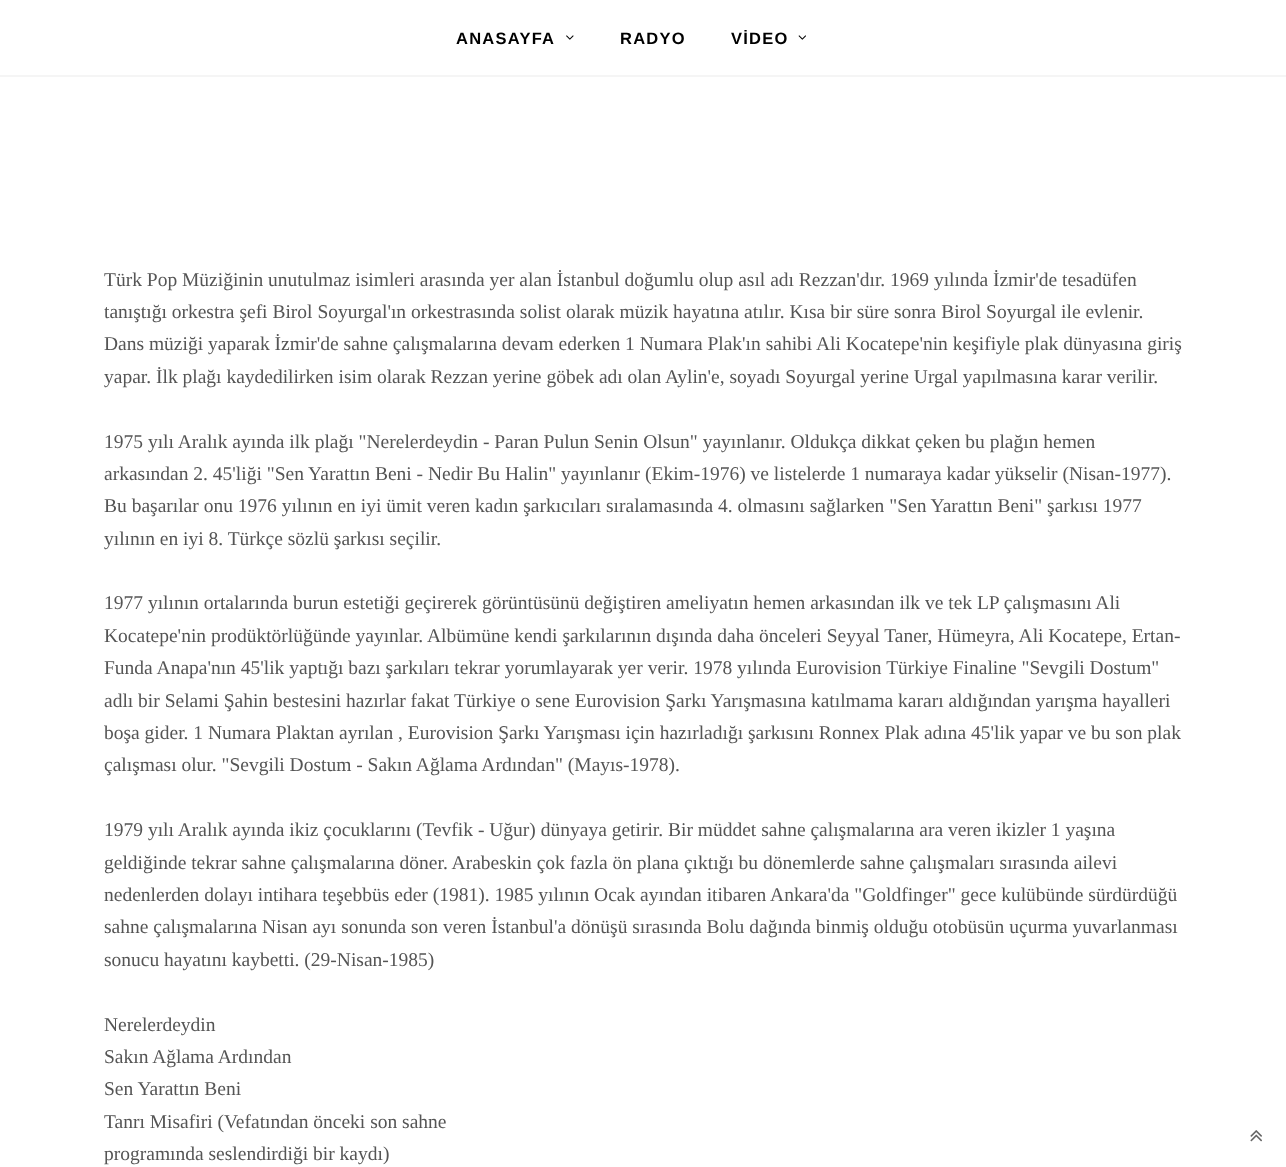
<svg xmlns="http://www.w3.org/2000/svg" xmlns:xlink="http://www.w3.org/1999/xlink" width="1286" height="1167" viewBox="0 0 1286 1167">
<style>
.cls-1{font:bold 16.5px Liberation Sans;letter-spacing:1.25px;fill:#000000}
.cls-2{font:19.5px Liberation Serif;fill:#555555}
</style>
<rect width="100%" height="100%" fill="#ffffff"/>
<rect fill="#f5f5f5" x="0" y="75" width="1286" height="2"/>
<image xlink:href="image0.png" x="566" y="35" width="8" height="5"/>
<image xlink:href="image1.png" x="798" y="35" width="8" height="5"/>
<image xlink:href="image2.png" x="1250" y="1130" width="12" height="12"/>
<text class="cls-1" x="456" y="44">ANASAYFA</text>
<text class="cls-1" x="620" y="44">RADYO</text>
<text class="cls-1" x="731" y="44">VİDEO</text>
<text class="cls-2"><tspan x="104" y="286">Türk Pop Müziğinin unutulmaz isimleri arasında yer alan İstanbul doğumlu olup asıl adı Rezzan'dır. 1969 yılında İzmir'de tesadüfen</tspan><tspan x="104" y="318">tanıştığı orkestra şefi Birol Soyurgal'ın orkestrasında solist olarak müzik hayatına atılır. Kısa bir süre sonra Birol Soyurgal ile evlenir.</tspan><tspan x="104" y="350">Dans müziği yaparak İzmir'de sahne çalışmalarına devam ederken 1 Numara Plak'ın sahibi Ali Kocatepe'nin keşifiyle plak dünyasına giriş</tspan><tspan x="104" y="383">yapar. İlk plağı kaydedilirken isim olarak Rezzan yerine göbek adı olan Aylin'e, soyadı Soyurgal yerine Urgal yapılmasına karar verilir.</tspan></text>
<text class="cls-2"><tspan x="104" y="448">1975 yılı Aralık ayında ilk plağı "Nerelerdeydin - Paran Pulun Senin Olsun" yayınlanır. Oldukça dikkat çeken bu plağın hemen</tspan><tspan x="104" y="480">arkasından 2. 45'liği "Sen Yarattın Beni - Nedir Bu Halin" yayınlanır (Ekim-1976) ve listelerde 1 numaraya kadar yükselir (Nisan-1977).</tspan><tspan x="104" y="512">Bu başarılar onu 1976 yılının en iyi ümit veren kadın şarkıcıları sıralamasında 4. olmasını sağlarken "Sen Yarattın Beni" şarkısı 1977</tspan><tspan x="104" y="545">yılının en iyi 8. Türkçe sözlü şarkısı seçilir.</tspan></text>
<text class="cls-2"><tspan x="104" y="609">1977 yılının ortalarında burun estetiği geçirerek görüntüsünü değiştiren ameliyatın hemen arkasından ilk ve tek LP çalışmasını Ali</tspan><tspan x="104" y="642">Kocatepe'nin prodüktörlüğünde yayınlar. Albümüne kendi şarkılarının dışında daha önceleri Seyyal Taner, Hümeyra, Ali Kocatepe, Ertan-</tspan><tspan x="104" y="674">Funda Anapa'nın 45'lik yaptığı bazı şarkıları tekrar yorumlayarak yer verir. 1978 yılında Eurovision Türkiye Finaline "Sevgili Dostum"</tspan><tspan x="104" y="707">adlı bir Selami Şahin bestesini hazırlar fakat Türkiye o sene Eurovision Şarkı Yarışmasına katılmama kararı aldığından yarışma hayalleri</tspan><tspan x="104" y="739">boşa gider. 1 Numara Plaktan ayrılan , Eurovision Şarkı Yarışması için hazırladığı şarkısını Ronnex Plak adına 45'lik yapar ve bu son plak</tspan><tspan x="104" y="771">çalışması olur. "Sevgili Dostum - Sakın Ağlama Ardından" (Mayıs-1978).</tspan></text>
<text class="cls-2"><tspan x="104" y="836">1979 yılı Aralık ayında ikiz çocuklarını (Tevfik - Uğur) dünyaya getirir. Bir müddet sahne çalışmalarına ara veren ikizler 1 yaşına</tspan><tspan x="104" y="869">geldiğinde tekrar sahne çalışmalarına döner. Arabeskin çok fazla ön plana çıktığı bu dönemlerde sahne çalışmaları sırasında ailevi</tspan><tspan x="104" y="901">nedenlerden dolayı intihara teşebbüs eder (1981). 1985 yılının Ocak ayından itibaren Ankara'da "Goldfinger" gece kulübünde sürdürdüğü</tspan><tspan x="104" y="933">sahne çalışmalarına Nisan ayı sonunda son veren İstanbul'a dönüşü sırasında Bolu dağında binmiş olduğu otobüsün uçurma yuvarlanması</tspan><tspan x="104" y="966">sonucu hayatını kaybetti. (29-Nisan-1985)</tspan></text>
<text class="cls-2"><tspan x="104" y="1031">Nerelerdeydin</tspan><tspan x="104" y="1063">Sakın Ağlama Ardından</tspan><tspan x="104" y="1095">Sen Yarattın Beni</tspan><tspan x="104" y="1128">Tanrı Misafiri (Vefatından önceki son sahne</tspan><tspan x="104" y="1160">programında seslendirdiği bir kaydı)</tspan></text>
</svg>
